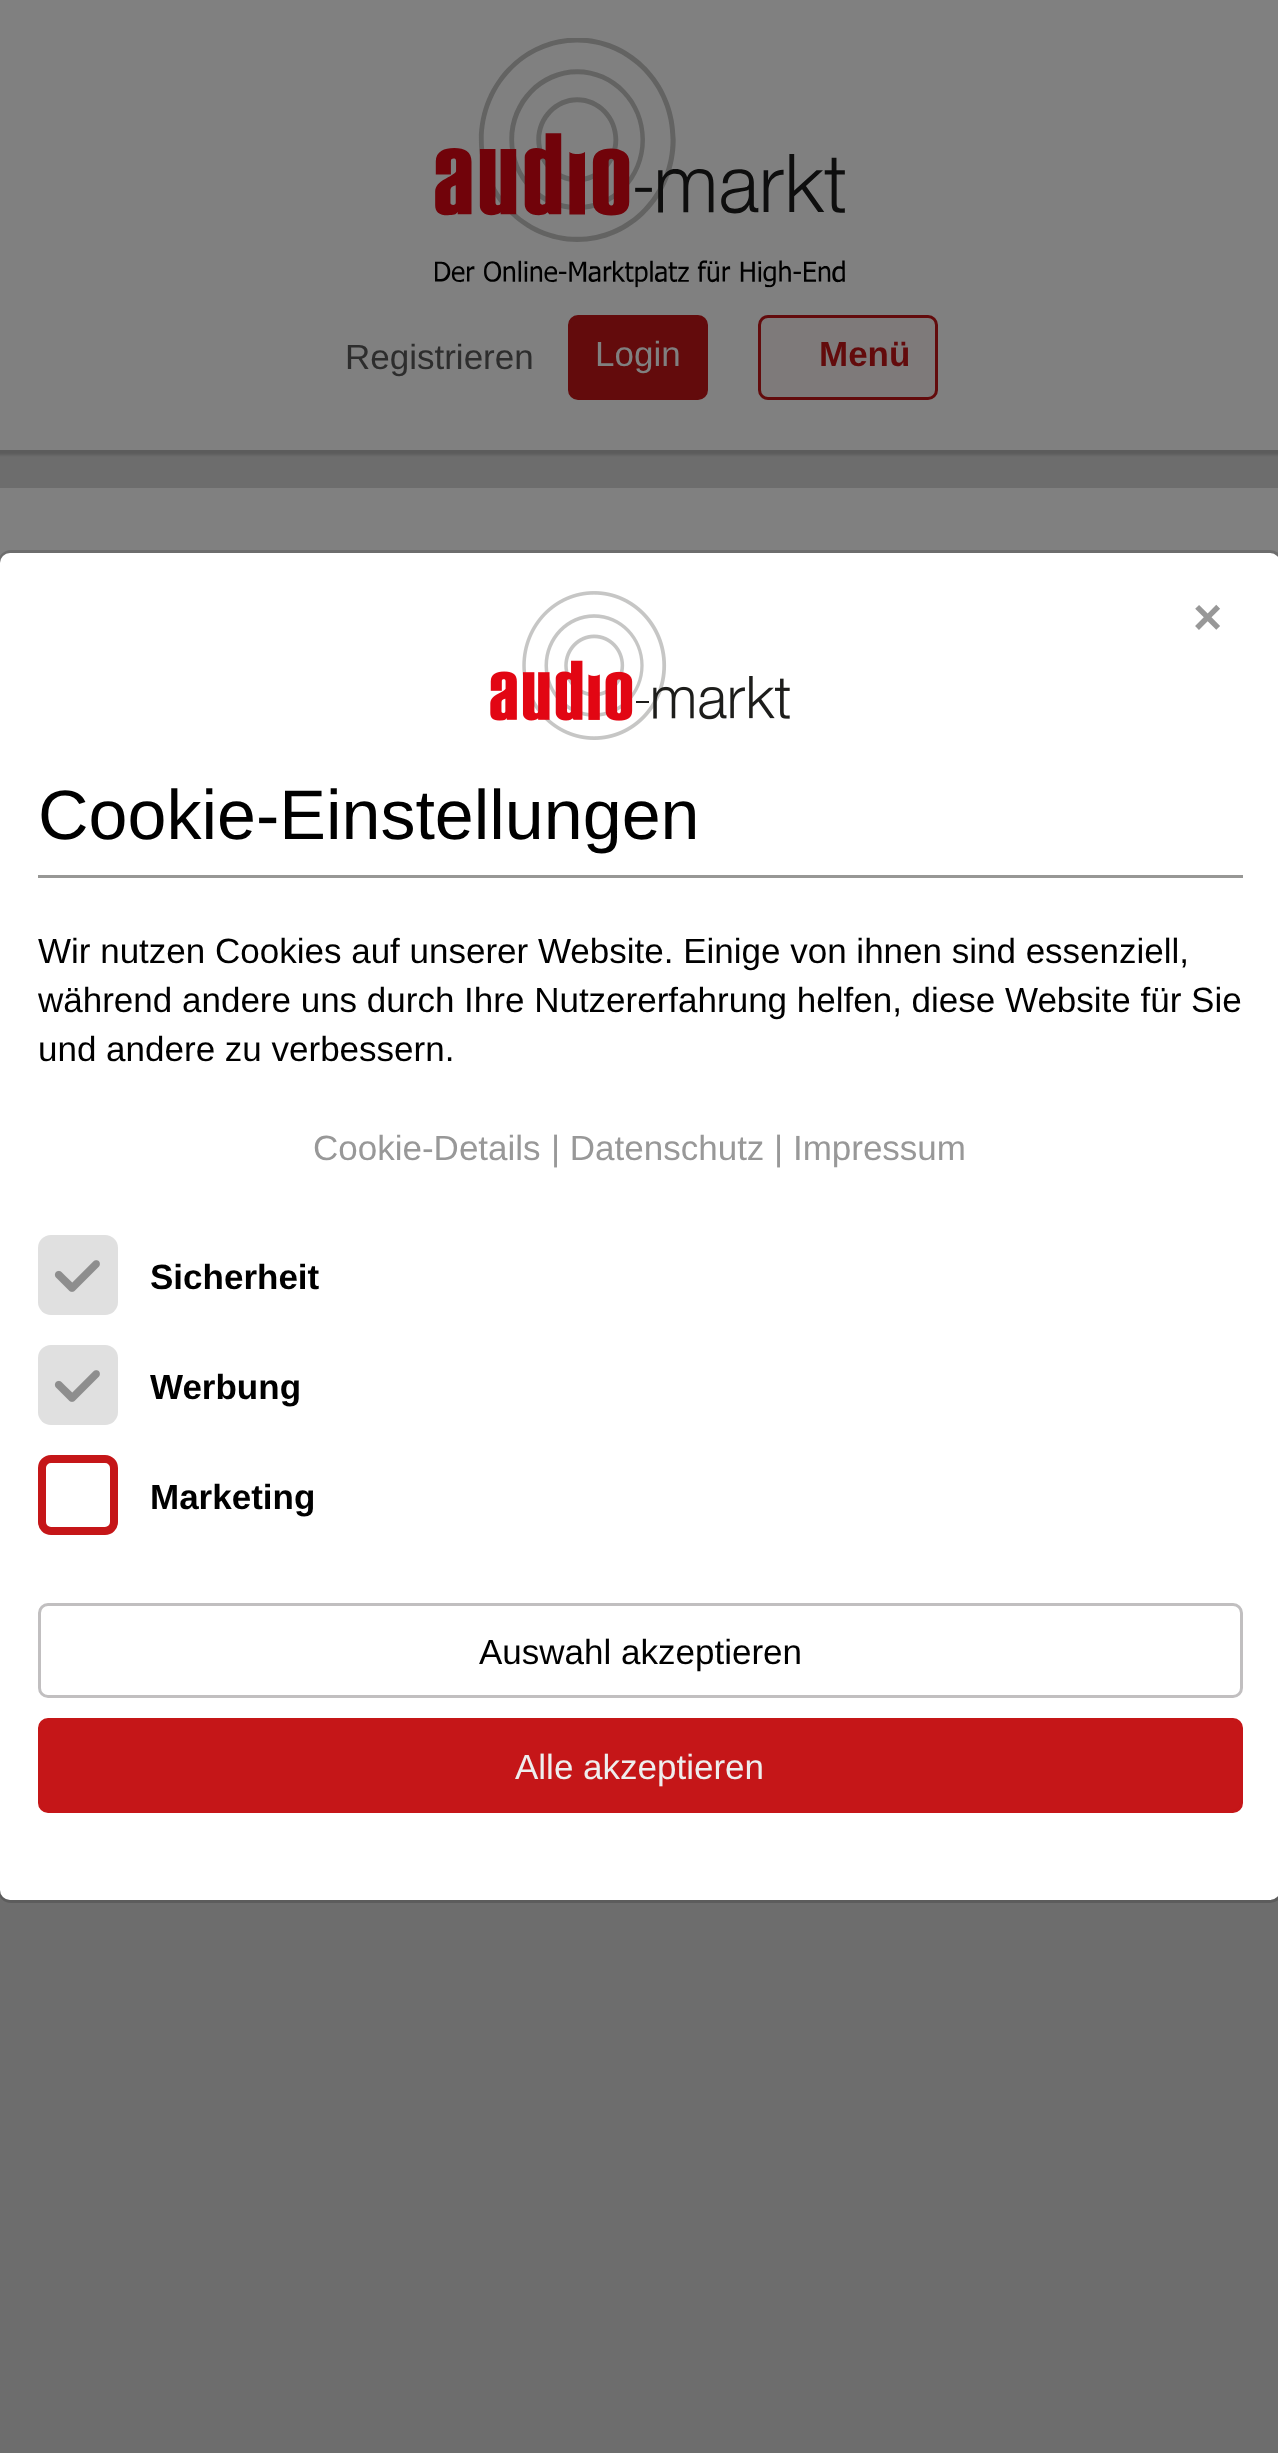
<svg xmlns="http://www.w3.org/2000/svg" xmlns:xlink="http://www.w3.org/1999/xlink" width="1278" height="2453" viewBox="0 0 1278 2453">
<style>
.cls-1{font:35px Liberation Sans;fill:#2d2d2d}
.cls-2{font:35px Liberation Sans;fill:#808080}
.cls-3{font:bold 35px Liberation Sans;fill:#630b0c}
.cls-4{font:bold 50px Liberation Sans;fill:#989898}
.cls-5{font:35px Liberation Sans;fill:#000000}
.cls-6{font:35px Liberation Sans;fill:#989898}
.cls-7{font:70px Liberation Sans;fill:#000000}
.cls-8{font:bold 35px Liberation Sans;fill:#000000}
.cls-9{font:35px Liberation Sans;fill:#eeeeee}
</style>
<rect width="100%" height="100%" fill="#6d6d6d"/>
<rect fill="#000000" fill-opacity="0.15" filter="blur(1px)" x="-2" y="0" width="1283" height="455"/>
<rect fill="#808080" x="0" y="0" width="1278" height="450"/>
<image xlink:href="image0.png" x="435" y="38" width="410" height="250"/>
<rect fill="#630b0c" stroke="#630b0c" stroke-width="3" x="569.5" y="316.5" width="137" height="82" rx="8.5"/>
<rect fill="#7e7a7a" stroke="#630b0c" stroke-width="3" x="759.5" y="316.5" width="177" height="82" rx="8.5"/>
<rect fill="#808080" x="0" y="488" width="1278" height="75"/>
<rect fill="none" stroke="#000000" stroke-opacity="0.15" stroke-width="3" x="-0.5" y="551.5" width="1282" height="1350" rx="11.5"/>
<rect fill="#ffffff" x="0" y="553" width="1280" height="1347" rx="10"/>
<image xlink:href="image1.png" x="490" y="591" width="300" height="149"/>
<rect fill="#979795" x="38" y="875" width="1205" height="3"/>
<rect fill="#e0e0e0" x="38" y="1235" width="80" height="80" rx="13"/>
<image xlink:href="image2.png" x="54" y="1260" width="46" height="32"/>
<rect fill="#e0e0e0" x="38" y="1345" width="80" height="80" rx="13"/>
<image xlink:href="image2.png" x="54" y="1370" width="46" height="32"/>
<rect fill="none" stroke="#c51618" stroke-width="8" x="42" y="1459" width="72" height="72" rx="9"/>
<rect fill="none" stroke="#c1bfc0" stroke-width="3" x="39.5" y="1604.5" width="1202" height="92" rx="8.5"/>
<rect fill="#c51618" stroke="#c51618" stroke-width="3" x="39.5" y="1719.5" width="1202" height="92" rx="8.5"/>
<text class="cls-1" x="345" y="369">Registrieren</text>
<text class="cls-2" x="595" y="366">Login</text>
<text class="cls-3" x="819" y="366">Menü</text>
<text class="cls-4" x="1193" y="634">×</text>
<text class="cls-5"><tspan x="38" y="963">Wir nutzen Cookies auf unserer Website. Einige von ihnen sind essenziell,</tspan><tspan x="38" y="1012">während andere uns durch Ihre Nutzererfahrung helfen, diese Website für Sie</tspan><tspan x="38" y="1061">und andere zu verbessern.</tspan></text>
<text class="cls-6" x="313" y="1160">Cookie-Details</text>
<text class="cls-6" x="551" y="1160">| Datenschutz | Impressum</text>
<text class="cls-7" x="38" y="839">Cookie-Einstellungen</text>
<text class="cls-8" x="150" y="1289">Sicherheit</text>
<text class="cls-8" x="150" y="1399">Werbung</text>
<text class="cls-8" x="150" y="1509">Marketing</text>
<text class="cls-5" x="479" y="1664">Auswahl akzeptieren</text>
<text class="cls-9" x="515" y="1779">Alle akzeptieren</text>
</svg>
